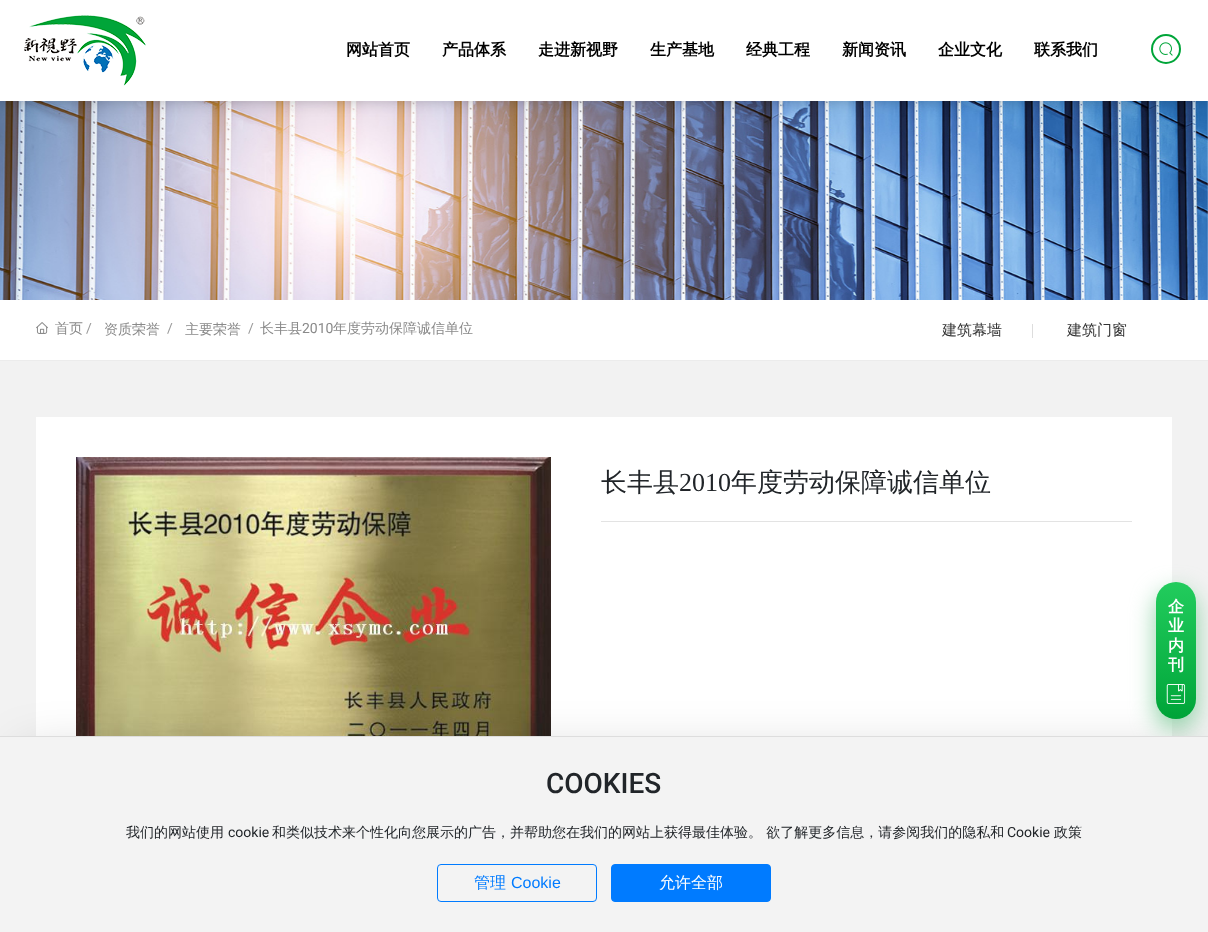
<svg xmlns="http://www.w3.org/2000/svg" xmlns:xlink="http://www.w3.org/1999/xlink" width="1208" height="932" viewBox="0 0 1208 932">
<style>
.cls-1{font:bold 16px WenQuanYi Zen Hei;fill:#000000}
.cls-2{font:500 14px WenQuanYi Zen Hei;fill:#8a8a8a}
.cls-3{font:14px Roboto;fill:#999999}
.cls-4{font:14px Roboto;fill:#8a8a8a}
.cls-5{font:500 15px WenQuanYi Zen Hei;fill:#333333}
.cls-6{font:500 26px WenQuanYi Zen Hei;fill:#212529}
.cls-7{font:26px Liberation Serif;fill:#212529}
.cls-8{font:bold 16px WenQuanYi Zen Hei;fill:#ffffff}
.cls-9{font:500 28px Roboto;fill:#212529}
.cls-10{font:500 14px WenQuanYi Zen Hei;fill:#212529}
.cls-11{font:14px Roboto;fill:#212529}
.cls-12{font:500 16px WenQuanYi Zen Hei;fill:#007bff}
.cls-13{font:16px Liberation Sans;fill:#007bff}
.cls-14{font:500 16px WenQuanYi Zen Hei;fill:#ffffff}
</style>
<defs>
<linearGradient id="g1" gradientUnits="userSpaceOnUse" x1="1176" y1="719" x2="1176" y2="582"><stop offset="0" stop-color="#00a539"/><stop offset="1" stop-color="#22cc5d"/></linearGradient>
</defs>
<rect width="100%" height="100%" fill="#ffffff"/>
<image xlink:href="image2.png" x="0" y="101" width="1208" height="199"/>
<rect fill="#000000" fill-opacity="0.2" filter="blur(7.5px)" x="0" y="0" width="1208" height="101"/>
<rect fill="#ffffff" x="0" y="0" width="1208" height="101"/>
<image xlink:href="image0.png" x="24" y="15" width="122" height="71"/>
<circle fill="none" stroke="#00a539" stroke-width="2" cx="1166" cy="49" r="14"/>
<image xlink:href="image1.png" x="1159" y="42" width="14" height="14"/>
<rect fill="#ececec" x="0" y="360" width="1208" height="1"/>
<image xlink:href="image3.png" x="36" y="322" width="12" height="12"/>
<rect fill="#dddddd" x="1032" y="324" width="1" height="14"/>
<rect fill="#f2f2f2" x="0" y="361" width="1208" height="375"/>
<rect fill="#ffffff" x="36" y="417" width="1136" height="319"/>
<image xlink:href="image4.png" x="76" y="457" width="475" height="279"/>
<rect fill="#e3e3e3" x="601" y="521" width="531" height="1"/>
<rect fill="#8ed2a6" filter="blur(12.5px)" x="1156" y="592" width="40" height="137" rx="20"/>
<rect fill="url(#g1)" x="1156" y="582" width="40" height="137" rx="20"/>
<image xlink:href="image5.png" x="1166" y="684" width="20" height="20"/>
<rect fill="#000000" fill-opacity="0.2" filter="blur(25px)" x="21" y="753" width="1166" height="154"/>
<rect fill="#f3f3f3" x="0" y="737" width="1208" height="195"/>
<rect fill="#dddddd" x="0" y="736" width="1208" height="1"/>
<rect fill="none" stroke="#007bff" x="437.5" y="864.5" width="159" height="37" rx="3.5"/>
<rect fill="#007bff" stroke="#007bff" x="611.5" y="864.5" width="159" height="37" rx="3.5"/>
<text class="cls-1" x="346" y="55">网站首页</text>
<text class="cls-1" x="442" y="55">产品体系</text>
<text class="cls-1" x="538" y="55">走进新视野</text>
<text class="cls-1" x="650" y="55">生产基地</text>
<text class="cls-1" x="746" y="55">经典工程</text>
<text class="cls-1" x="842" y="55">新闻资讯</text>
<text class="cls-1" x="938" y="55">企业文化</text>
<text class="cls-1" x="1034" y="55">联系我们</text>
<text class="cls-2" x="55" y="333">首页</text>
<text class="cls-3" x="86" y="333">/</text>
<text class="cls-2" x="104" y="334">资质荣誉</text>
<text class="cls-3" x="167" y="333">/</text>
<text class="cls-2" x="185" y="334">主要荣誉</text>
<text class="cls-3" x="248" y="333">/</text>
<text class="cls-2" x="260" y="333">长丰县</text>
<text class="cls-4" x="302" y="333">2010</text>
<text class="cls-2" x="333" y="333">年度劳动保障诚信单位</text>
<text class="cls-5" x="942" y="335">建筑幕墙</text>
<text class="cls-5" x="1067" y="335">建筑门窗</text>
<text class="cls-6" x="601" y="491">长丰县</text>
<text class="cls-7" x="679" y="491">2010</text>
<text class="cls-6" x="731" y="491">年度劳动保障诚信单位</text>
<text class="cls-8"><tspan x="1168" y="612">企</tspan><tspan x="1168" y="631">业</tspan><tspan x="1168" y="651">内</tspan><tspan x="1168" y="670">刊</tspan></text>
<text class="cls-9" x="546" y="793">COOKIES</text>
<text class="cls-10" x="126" y="837">我们的网站使用</text>
<text class="cls-11" x="228" y="837">cookie</text>
<text class="cls-10" x="272" y="837">和类似技术来个性化向您展示的广告，并帮助您在我们的网站上获得最佳体验。 欲了解更多信息，请参阅我们的隐私和</text>
<text class="cls-11" x="1007" y="837">Cookie</text>
<text class="cls-10" x="1054" y="837">政策</text>
<text class="cls-12" x="474" y="888">管理</text>
<text class="cls-13" x="511" y="888">Cookie</text>
<text class="cls-14" x="659" y="888">允许全部</text>
</svg>
